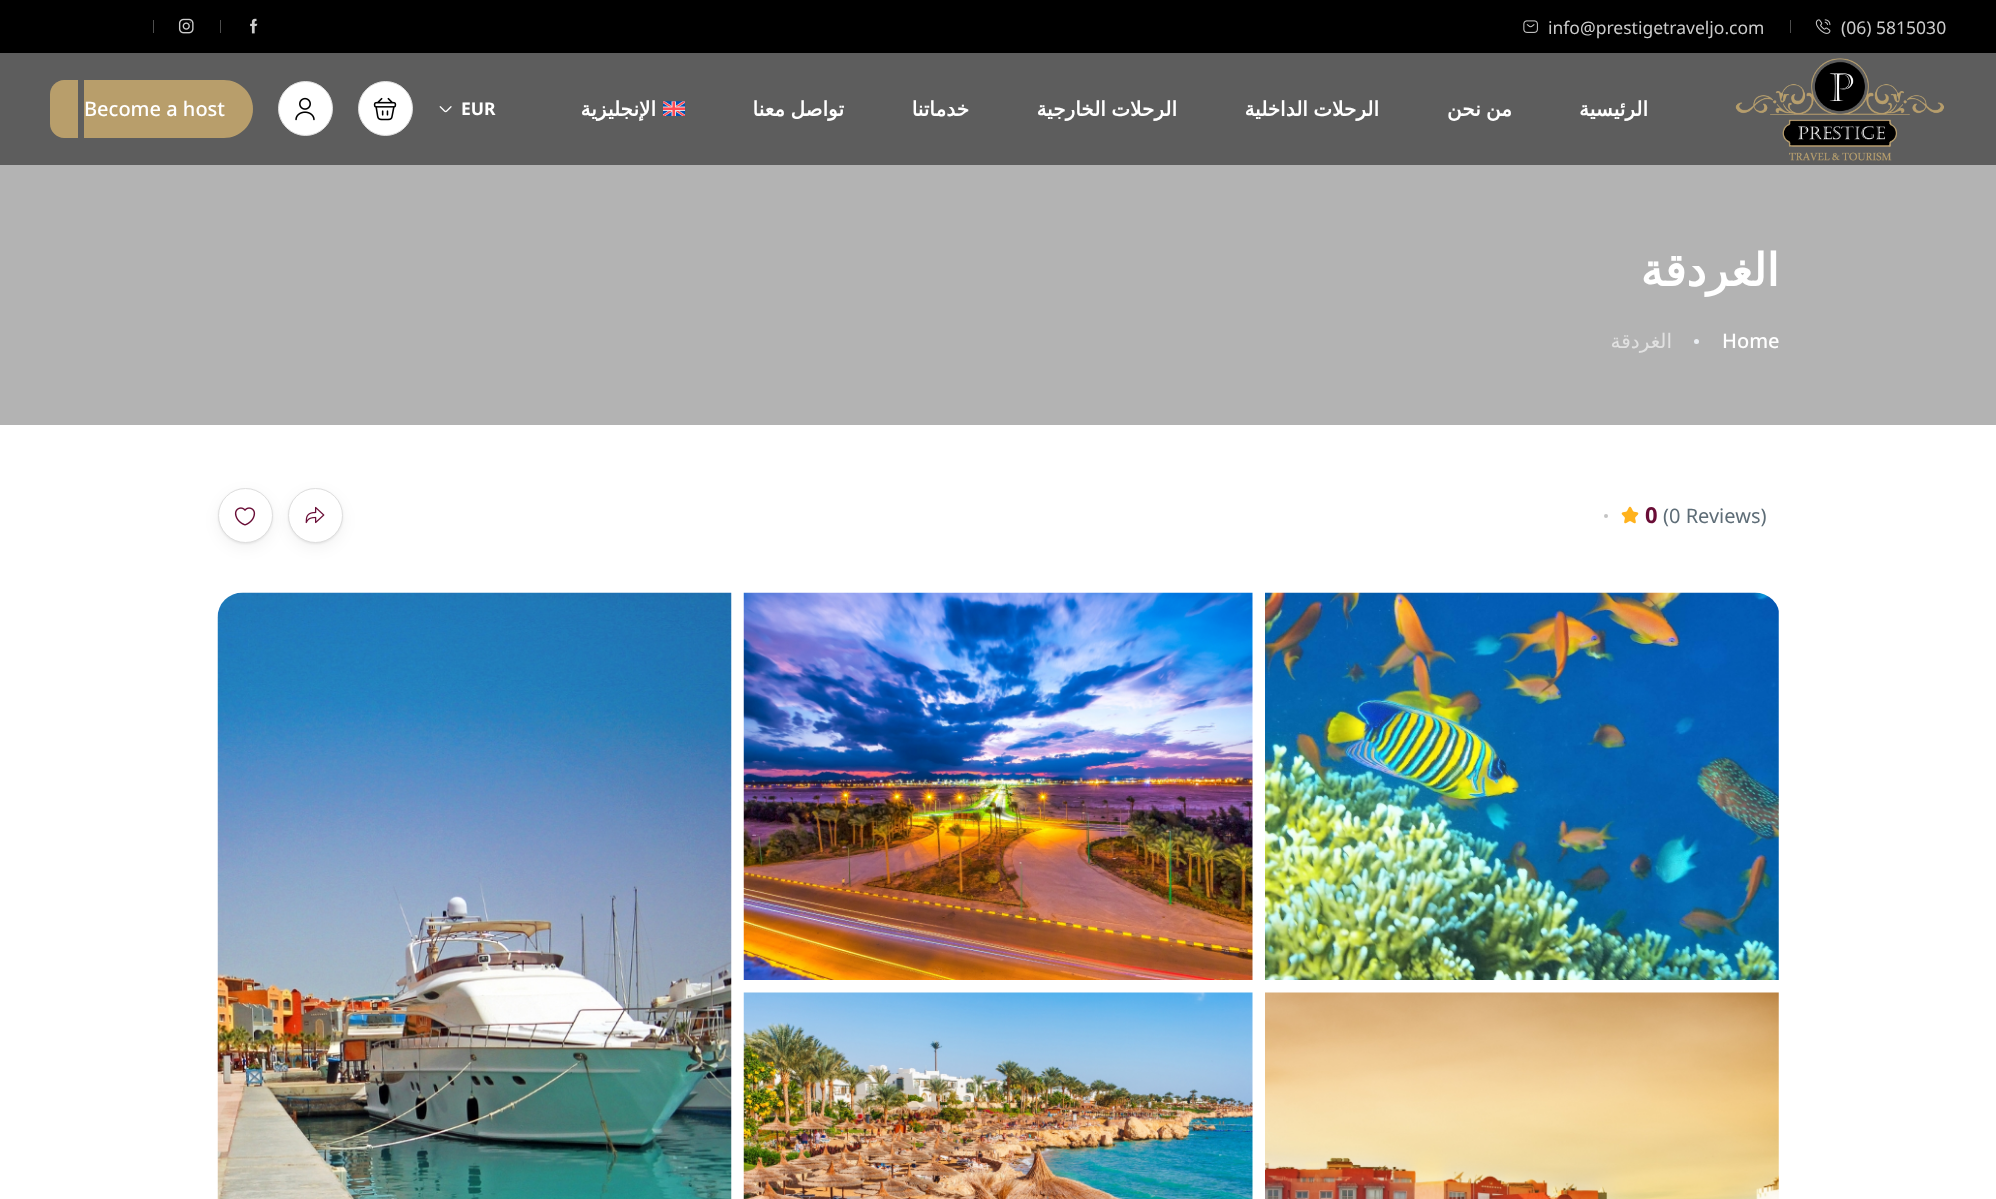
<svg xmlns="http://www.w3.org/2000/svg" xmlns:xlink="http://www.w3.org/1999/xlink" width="1996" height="1199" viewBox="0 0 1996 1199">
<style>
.cls-1{font:17.5px Noto Sans;fill:#cccccc}
.cls-2{font:bold 20px DejaVu Sans;direction:rtl;fill:#ffffff}
.cls-3{font:bold 17.5px Noto Sans;fill:#ffffff}
.cls-4{font:500 20px Noto Sans;fill:#ffffff}
.cls-5{font:bold 45px DejaVu Sans;direction:rtl;fill:#ffffff}
.cls-6{font:20px DejaVu Sans;direction:rtl;fill:#e1e1e1}
.cls-7{font:20px Noto Sans;fill:#5e6d77}
.cls-8{font:bold 22px Noto Sans;fill:#690d36}
</style>
<rect width="100%" height="100%" fill="#ffffff"/>
<rect fill="#000000" x="0" y="0" width="1996" height="53"/>
<image xlink:href="image0.png" x="1815" y="19" width="16" height="15"/>
<rect fill="#4d4d4d" x="1790" y="20" width="1" height="13"/>
<image xlink:href="image1.png" x="1523" y="20" width="15" height="13"/>
<image xlink:href="image2.png" x="250" y="18" width="8" height="16"/>
<rect fill="#4d4d4d" x="220" y="20" width="1" height="13"/>
<image xlink:href="image3.png" x="178" y="18" width="16" height="16"/>
<rect fill="#4d4d4d" x="153" y="20" width="1" height="13"/>
<rect fill="#5d5d5d" x="0" y="53" width="1996" height="112"/>
<image xlink:href="image4.png" x="1735" y="58" width="209" height="103"/>
<image xlink:href="image5.png" x="663" y="101" width="22" height="15"/>
<image xlink:href="image6.png" x="439" y="106" width="13" height="7"/>
<circle fill="#ffffff" stroke="#dedede" cx="385.5" cy="108.5" r="27"/>
<image xlink:href="image7.png" x="373" y="97" width="24" height="24"/>
<circle fill="#ffffff" stroke="#dedede" cx="305.5" cy="108.5" r="27"/>
<image xlink:href="image8.png" x="295" y="97" width="20" height="24"/>
<path fill="#b89e6b" d="M64 80H78V138H64C56.5 138 50 131.5 50 124V94C50 86.5 56.5 80 64 80Z"/>
<path fill="#b89e6b" d="M84 80H224C240 80 253 93 253 109C253 125 240 138 224 138H84Z"/>
<rect fill="#b3b3b3" x="0" y="165" width="1996" height="260"/>
<circle fill="#eaeef3" cx="1696.5" cy="341.5" r="2.5"/>
<image xlink:href="image9.png" x="1621" y="506" width="18" height="18"/>
<circle fill="#c4c4c4" cx="1606" cy="516" r="2"/>
<rect fill="#000000" fill-opacity="0.05" filter="blur(7.5px)" x="218" y="493" width="55" height="55" rx="27.5"/>
<rect fill="#000000" fill-opacity="0.08" filter="blur(1px)" x="218" y="489" width="55" height="55" rx="27.5"/>
<circle fill="#ffffff" stroke="#dedede" cx="245.5" cy="515.5" r="27"/>
<rect fill="#000000" fill-opacity="0.05" filter="blur(7.5px)" x="288" y="493" width="55" height="55" rx="27.5"/>
<rect fill="#000000" fill-opacity="0.08" filter="blur(1px)" x="288" y="489" width="55" height="55" rx="27.5"/>
<circle fill="#ffffff" stroke="#dedede" cx="315.5" cy="515.5" r="27"/>
<image xlink:href="image10.png" x="305" y="506" width="20" height="18"/>
<image xlink:href="image11.png" x="234" y="507" width="22" height="19"/>
<image xlink:href="image12.png" x="1265" y="592" width="514" height="388"/>
<image xlink:href="image13.png" x="743" y="592" width="510" height="388"/>
<image xlink:href="image14.png" x="217" y="592" width="515" height="607"/>
<image xlink:href="image15.png" x="1265" y="992" width="514" height="207"/>
<image xlink:href="image16.png" x="743" y="992" width="510" height="207"/>
<text class="cls-1" x="1841" y="34">(06) 5815030</text>
<text class="cls-1" x="1548" y="34">info@prestigetraveljo.com</text>
<text class="cls-2" x="1648" y="116">الرئيسية</text>
<text class="cls-2" x="1512" y="116" word-spacing="-1">من نحن</text>
<text class="cls-2" x="1379" y="116" word-spacing="-1">الرحلات الداخلية</text>
<text class="cls-2" x="1177" y="116" word-spacing="-1">الرحلات الخارجية</text>
<text class="cls-2" x="969" y="116">خدماتنا</text>
<text class="cls-2" x="844" y="116" word-spacing="-1">تواصل معنا</text>
<text class="cls-2" x="656" y="116">الإنجليزية</text>
<text class="cls-3" x="461" y="115">EUR</text>
<text class="cls-4" x="84" y="116">Become a host</text>
<text class="cls-5" x="1779" y="286">الغردقة</text>
<text class="cls-4" x="1722" y="348">Home</text>
<text class="cls-6" x="1672" y="348">الغردقة</text>
<text class="cls-7" x="1663" y="523">(0 Reviews)</text>
<text class="cls-8" x="1645" y="523">0</text>
</svg>
